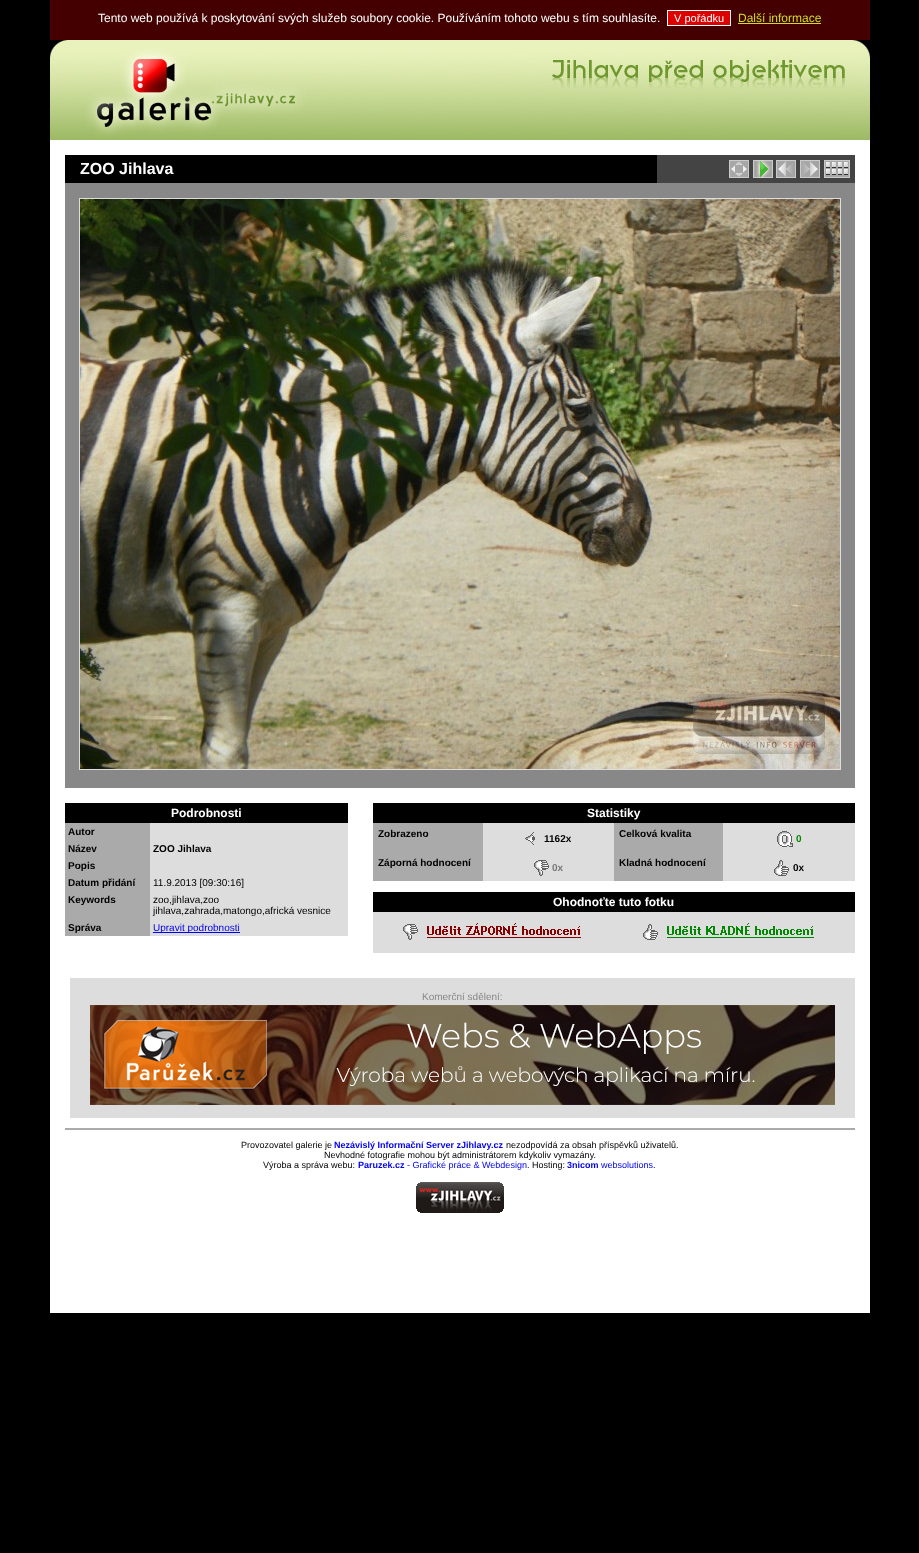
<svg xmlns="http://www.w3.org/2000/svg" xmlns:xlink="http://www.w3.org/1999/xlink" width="919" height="1553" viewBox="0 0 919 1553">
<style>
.cls-1{font:12px Liberation Sans;fill:#ffffff}
.cls-2{font:11px Liberation Sans;fill:#ffffff}
.cls-3{font:12px Liberation Sans;fill:#ccdd22}
.cls-4{font:bold 16px Liberation Sans;fill:#ffffff}
.cls-5{font:bold 12px Liberation Sans;fill:#ffffff}
.cls-6{font:bold 10px Liberation Sans;fill:#000000}
.cls-7{font:10px Liberation Sans;fill:#000000}
.cls-8{font:10px Liberation Sans;fill:#0000ee}
.cls-9{font:bold 10px Liberation Sans;fill:#008800}
.cls-10{font:bold 10px Liberation Sans;fill:#777777}
.cls-11{font:10px Liberation Sans;fill:#888888}
.cls-12{font:9px Liberation Sans;fill:#000000}
.cls-13{font:bold 9px Liberation Sans;fill:#0000ee}
.cls-14{font:9px Liberation Sans;fill:#0000ee}
</style>
<rect width="100%" height="100%" fill="#000000"/>
<rect fill="#440000" x="50" y="0" width="820" height="40"/>
<rect fill="#dd0000" stroke="#ffffff" x="667.5" y="10.5" width="63" height="15"/>
<rect fill="#ccdd22" x="738" y="23" width="83" height="1"/>
<image xlink:href="image0.png" x="50" y="40" width="820" height="100"/>
<rect fill="#ffffff" x="50" y="140" width="820" height="1173"/>
<rect fill="#000000" x="65" y="155" width="592" height="28"/>
<rect fill="#444444" x="657" y="155" width="198" height="28"/>
<image xlink:href="image1.png" x="729" y="160" width="20" height="18"/>
<image xlink:href="image2.png" x="753" y="160" width="20" height="18"/>
<image xlink:href="image3.png" x="776" y="160" width="20" height="18"/>
<image xlink:href="image4.png" x="800" y="160" width="20" height="18"/>
<image xlink:href="image5.png" x="824" y="160" width="26" height="18"/>
<rect fill="#888888" x="65" y="183" width="790" height="605"/>
<rect fill="none" stroke="#dddddd" x="79.5" y="198.5" width="761" height="571"/>
<image xlink:href="image6.png" x="80" y="199" width="760" height="570"/>
<rect fill="#000000" x="65" y="803" width="283" height="20"/>
<rect fill="#aaaaaa" x="65" y="823" width="85" height="113"/>
<rect fill="#dddddd" x="150" y="823" width="198" height="113"/>
<rect fill="#0000ee" x="153" y="932" width="87" height="1"/>
<rect fill="#000000" x="373" y="803" width="482" height="20"/>
<rect fill="#aaaaaa" x="373" y="823" width="110" height="58"/>
<rect fill="#aaaaaa" x="614" y="823" width="109" height="58"/>
<rect fill="#dddddd" x="483" y="823" width="131" height="58"/>
<image xlink:href="image7.png" x="525" y="832" width="10" height="13"/>
<rect fill="#dddddd" x="723" y="823" width="132" height="58"/>
<image xlink:href="image8.png" x="777" y="831" width="16" height="16"/>
<image xlink:href="image9.png" x="534" y="860" width="15" height="16"/>
<image xlink:href="image10.png" x="774" y="860" width="15" height="16"/>
<rect fill="#000000" x="373" y="892" width="482" height="20"/>
<rect fill="#dddddd" x="373" y="912" width="482" height="41"/>
<image xlink:href="image11.png" x="403" y="923" width="178" height="17"/>
<image xlink:href="image12.png" x="643" y="923" width="171" height="17"/>
<rect fill="#dddddd" x="70" y="978" width="785" height="140"/>
<image xlink:href="image13.png" x="90" y="1005" width="745" height="100"/>
<rect fill="#aaaaaa" x="65" y="1128" width="790" height="2"/>
<image xlink:href="image14.png" x="416" y="1182" width="88" height="31"/>
<text class="cls-1" x="98" y="22">Tento web používá k poskytování svých služeb soubory cookie. Používáním tohoto webu s tím souhlasíte.</text>
<text class="cls-2" x="674" y="22">V pořádku</text>
<text class="cls-3" x="738" y="22">Další informace</text>
<text class="cls-4" x="80" y="174">ZOO Jihlava</text>
<text class="cls-5" x="171" y="817">Podrobnosti</text>
<text class="cls-6"><tspan x="68" y="835">Autor</tspan><tspan x="68" y="852">Název</tspan></text>
<text class="cls-6" x="153" y="852">ZOO Jihlava</text>
<text class="cls-6"><tspan x="68" y="869">Popis</tspan><tspan x="68" y="886">Datum přidání</tspan></text>
<text class="cls-7" x="153" y="886">11.9.2013 [09:30:16]</text>
<text class="cls-6" x="68" y="903">Keywords</text>
<text class="cls-7"><tspan x="153" y="903">zoo,jihlava,zoo</tspan><tspan x="153" y="914">jihlava,zahrada,matongo,africká vesnice</tspan></text>
<text class="cls-6" x="68" y="931">Správa</text>
<text class="cls-8" x="153" y="931">Upravit podrobnosti</text>
<text class="cls-5" x="587" y="817">Statistiky</text>
<text class="cls-6" x="378" y="837">Zobrazeno</text>
<text class="cls-6" x="619" y="837">Celková kvalita</text>
<text class="cls-6" x="544" y="842">1162x</text>
<text class="cls-9" x="796" y="842">0</text>
<text class="cls-6" x="378" y="866">Záporná hodnocení</text>
<text class="cls-6" x="619" y="866">Kladná hodnocení</text>
<text class="cls-10" x="552" y="871">0x</text>
<text class="cls-6" x="793" y="871">0x</text>
<text class="cls-5" x="553" y="906">Ohodnoťte tuto fotku</text>
<text class="cls-11" x="422" y="1000">Komerční sdělení:</text>
<text class="cls-12" x="241" y="1148">Provozovatel galerie je</text>
<text class="cls-13" x="334" y="1148">Nezávislý Informační Server zJihlavy.cz</text>
<text class="cls-12" x="506" y="1148">nezodpovídá za obsah příspěvků uživatelů.</text>
<text class="cls-12" x="324" y="1158">Nevhodné fotografie mohou být administrátorem kdykoliv vymazány.</text>
<text class="cls-12" x="263" y="1168">Výroba a správa webu:</text>
<text class="cls-13" x="358" y="1168">Paruzek.cz</text>
<text class="cls-14" x="407" y="1168">- Grafické práce &amp; Webdesign</text>
<text class="cls-12" x="527" y="1168">. Hosting:</text>
<text class="cls-13" x="567" y="1168">3nicom</text>
<text class="cls-14" x="601" y="1168">websolutions</text>
<text class="cls-12" x="653" y="1168">.</text>
</svg>
